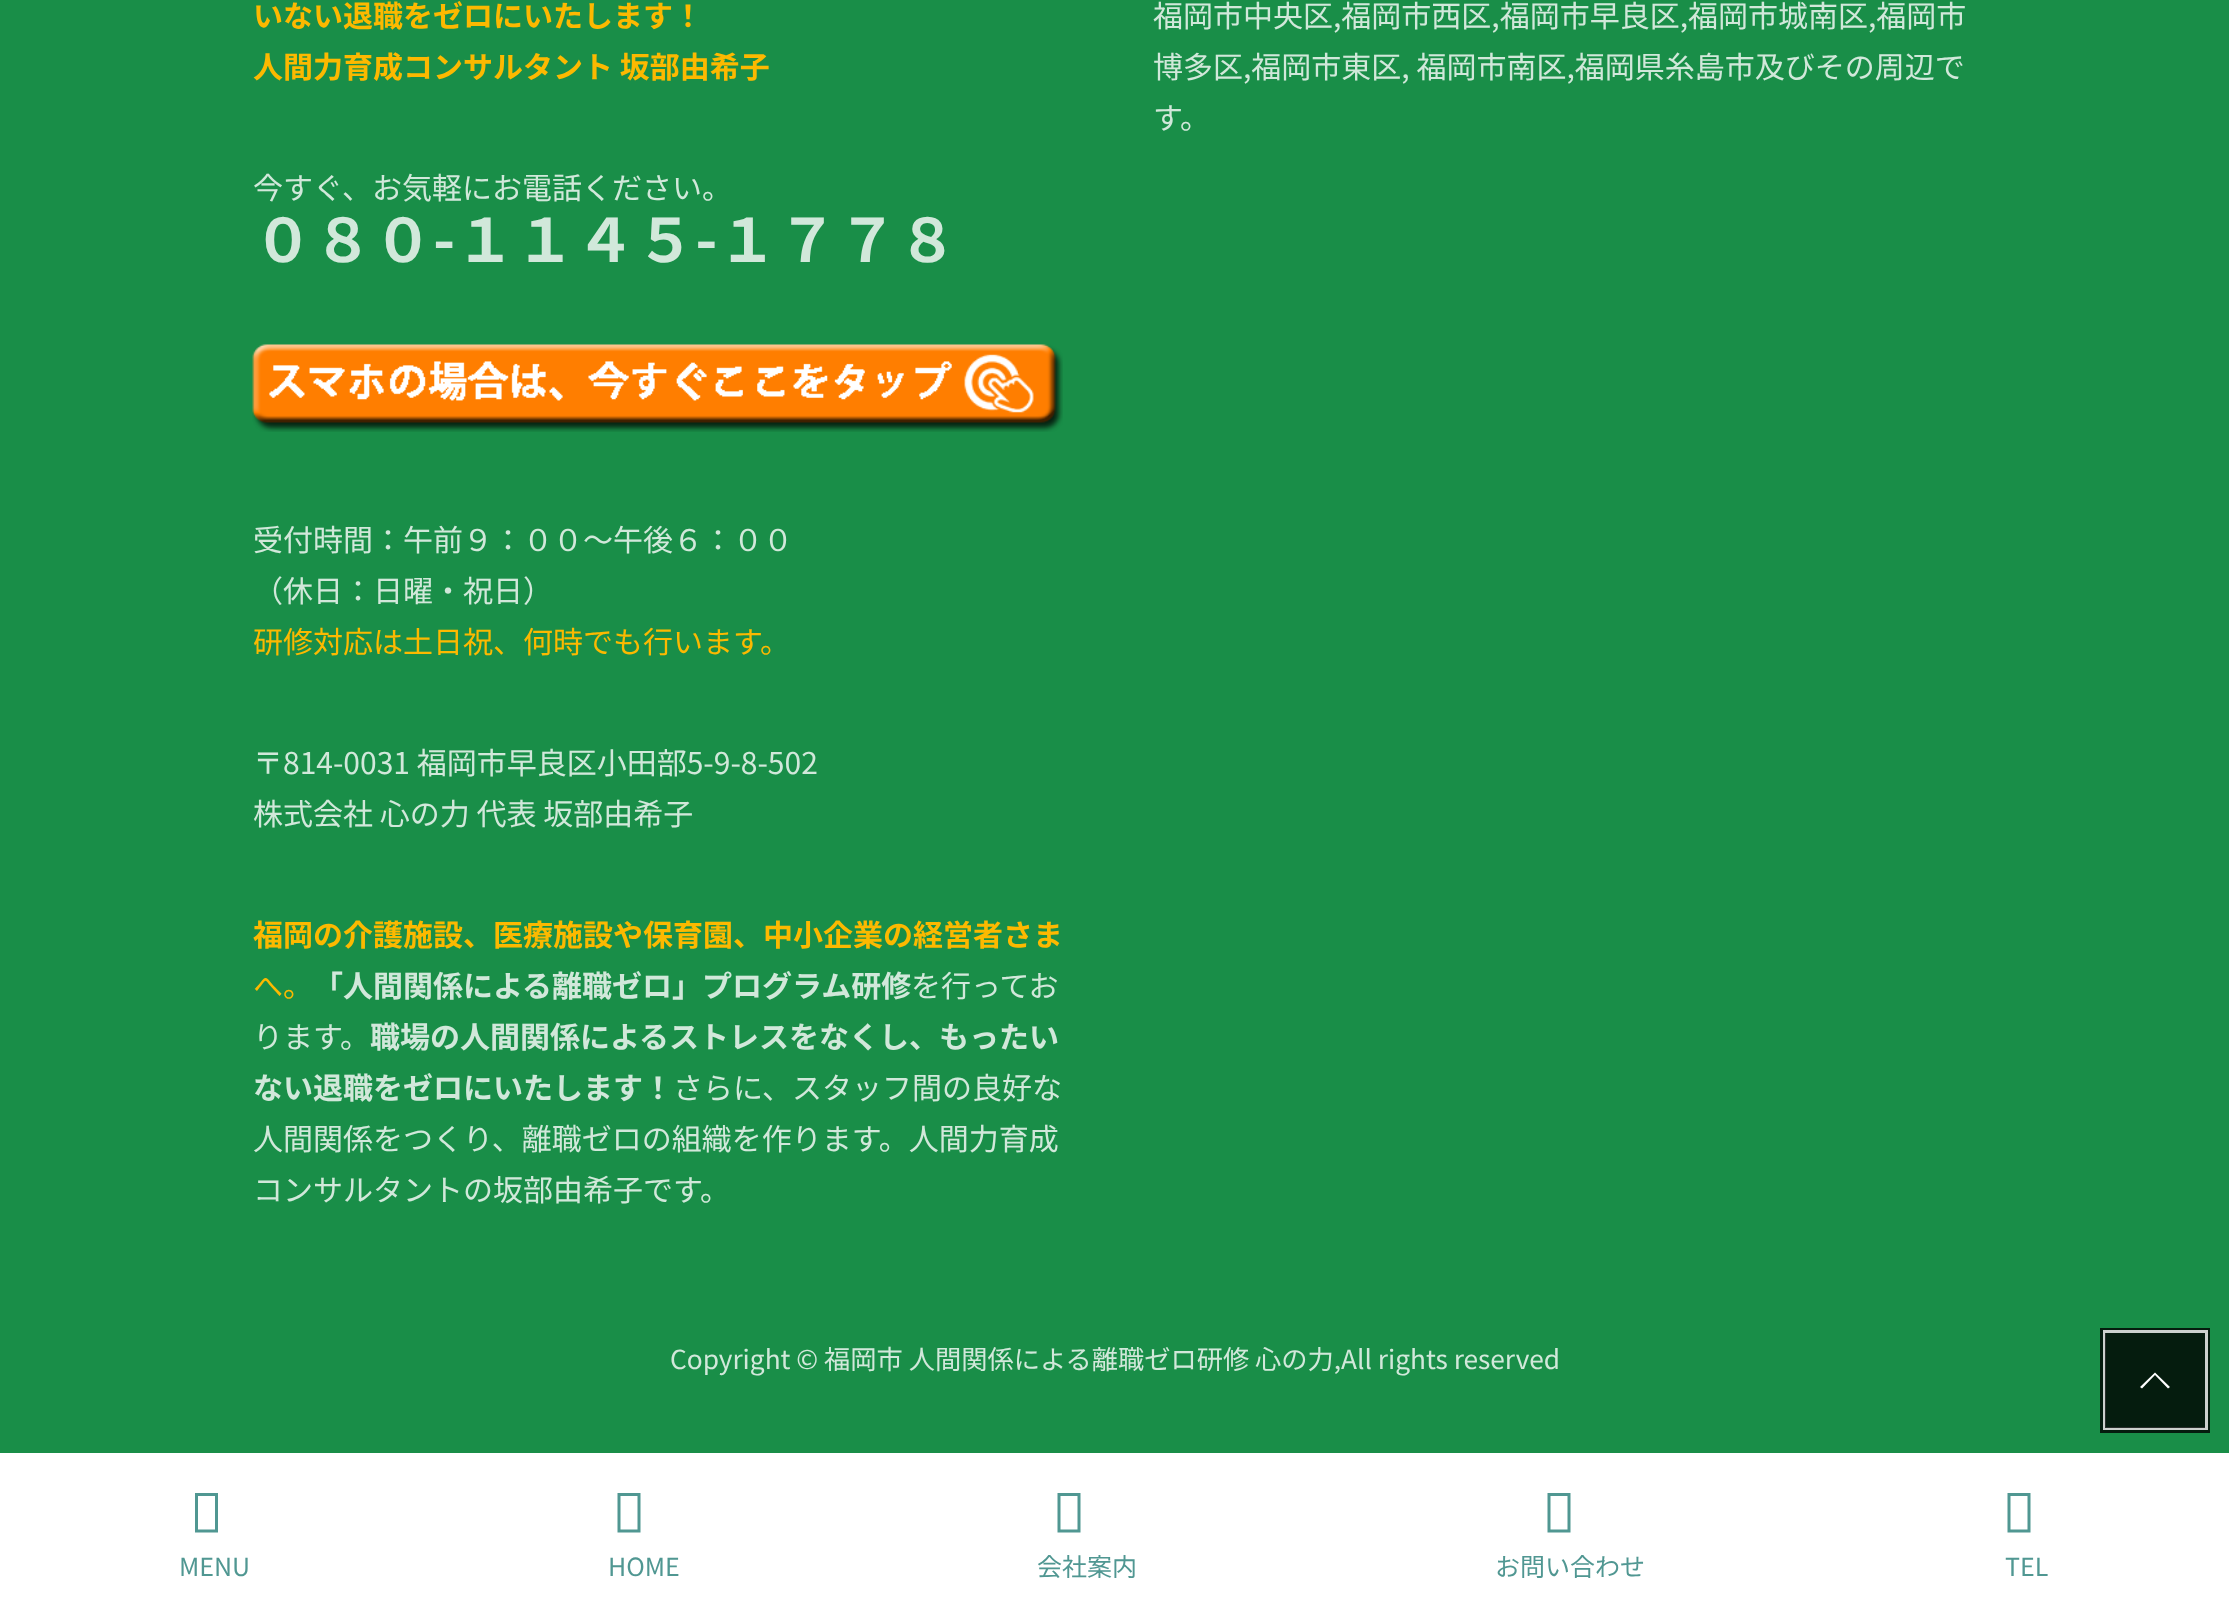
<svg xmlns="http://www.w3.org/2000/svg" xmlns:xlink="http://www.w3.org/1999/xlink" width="2229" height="1607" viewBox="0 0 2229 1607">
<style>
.cls-1{font:bold 30px Noto Sans JP;fill:#fcb900}
.cls-2{font:30px Noto Sans JP;fill:#d1e8da}
.cls-3{font:bold 60px Noto Sans JP;fill:#d1e8da}
.cls-4{font:30px Noto Sans JP;fill:#fcb900}
.cls-5{font:bold 30px Noto Sans JP;fill:#d1e8da}
.cls-6{font:26.25px Noto Sans JP;fill:#d1e8da}
.cls-7{font:25px Noto Sans JP;fill:#509792}
</style>
<rect width="100%" height="100%" fill="#198e48"/>
<image xlink:href="image0.png" x="252" y="344" width="811" height="88"/>
<rect fill="none" stroke="#051c0e" stroke-width="5" x="2102.5" y="1330.5" width="105" height="100"/>
<rect fill="none" stroke="#ffffff" stroke-opacity="0.8" stroke-width="3" x="2104.5" y="1331.5" width="102" height="97"/>
<rect fill="#000000" fill-opacity="0.8" x="2105" y="1333" width="100" height="95"/>
<path fill="#ffffff" d="M2170 1387L2168 1388.5L2155 1375L2142 1388.5L2140 1387L2155 1372.5Z"/>
<rect fill="#ffffff" x="0" y="1453" width="2229" height="154"/>
<path fill="#509792" d="M195 1532.5V1493H218V1532.5ZM198 1529.5H215V1496H198Z"/>
<path fill="#509792" d="M617.5 1532.5V1493H640.5V1532.5ZM620.5 1529.5H637.5V1496H620.5Z"/>
<path fill="#509792" d="M1057.5 1532.5V1493H1080.5V1532.5ZM1060.5 1529.5H1077.5V1496H1060.5Z"/>
<path fill="#509792" d="M1547.5 1532.5V1493H1570.5V1532.5ZM1550.5 1529.5H1567.5V1496H1550.5Z"/>
<path fill="#509792" d="M2007.5 1532.5V1493H2030.5V1532.5ZM2010.5 1529.5H2027.5V1496H2010.5Z"/>
<text class="cls-1"><tspan x="253" y="27">いない退職をゼロにいたします！</tspan><tspan x="253" y="78">人間力育成コンサルタント 坂部由希子</tspan></text>
<text class="cls-2" x="253" y="199">今すぐ、お気軽にお電話ください。</text>
<text class="cls-3" x="253" y="262">０８０-１１４５-１７７８</text>
<text class="cls-2"><tspan x="253" y="551">受付時間：午前９：００～午後６：００</tspan><tspan x="253" y="602">（休日：日曜・祝日）</tspan></text>
<text class="cls-4" x="253" y="653">研修対応は土日祝、何時でも行います。</text>
<text class="cls-2"><tspan x="253" y="774">〒814-0031 福岡市早良区小田部5-9-8-502</tspan><tspan x="253" y="825">株式会社 心の力 代表 坂部由希子</tspan></text>
<text class="cls-2"><tspan x="1153" y="27">福岡市中央区,福岡市西区,福岡市早良区,福岡市城南区,福岡市</tspan><tspan x="1153" y="78">博多区,福岡市東区, 福岡市南区,福岡県糸島市及びその周辺で</tspan><tspan x="1153" y="129">す。</tspan></text>
<text class="cls-1" x="253" y="946">福岡の介護施設、医療施設や保育園、中小企業の経営者さま</text>
<text class="cls-4" x="253" y="997">へ。</text>
<text class="cls-5" x="313" y="997">「人間関係による離職ゼロ」プログラム研修</text>
<text class="cls-2" x="911" y="997">を行ってお</text>
<text class="cls-2" x="253" y="1048">ります。</text>
<text class="cls-5" x="370" y="1048">職場の人間関係によるストレスをなくし、もったい</text>
<text class="cls-5" x="253" y="1099">ない退職をゼロにいたします！</text>
<text class="cls-2" x="673" y="1099">さらに、スタッフ間の良好な</text>
<text class="cls-2"><tspan x="253" y="1150">人間関係をつくり、離職ゼロの組織を作ります。人間力育成</tspan><tspan x="253" y="1201">コンサルタントの坂部由希子です。</tspan></text>
<text class="cls-6" x="670" y="1369">Copyright © 福岡市 人間関係による離職ゼロ研修 心の力,All rights reserved</text>
<text class="cls-7" x="179" y="1576">MENU</text>
<text class="cls-7" x="608" y="1576">HOME</text>
<text class="cls-7" x="1037" y="1576">会社案内</text>
<text class="cls-7" x="1495" y="1576">お問い合わせ</text>
<text class="cls-7" x="2005" y="1576">TEL</text>
</svg>
